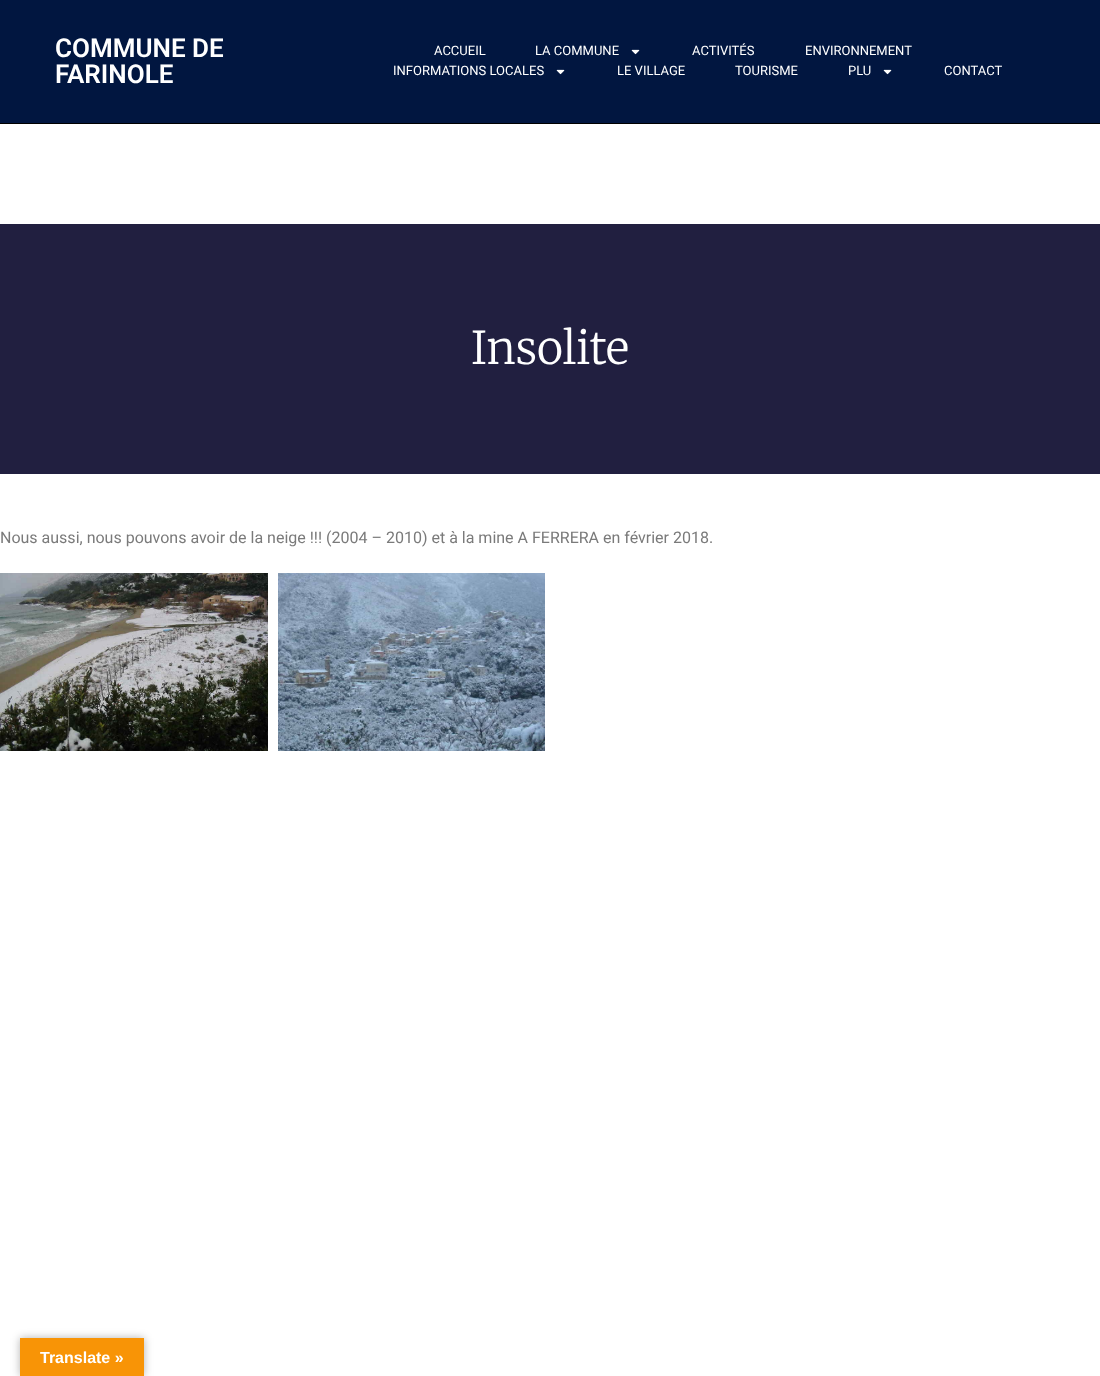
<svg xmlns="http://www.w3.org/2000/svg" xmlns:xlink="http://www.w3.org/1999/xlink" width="1100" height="1376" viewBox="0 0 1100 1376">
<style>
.cls-1{font:600 26px Roboto;fill:#ffffff}
.cls-2{font:13px Roboto;fill:#ffffff}
.cls-3{font:300 45px Merriweather;fill:#ffffff}
.cls-4{font:16px Roboto;fill:#7a7a7a}
.cls-5{font:bold 16px Liberation Sans;fill:#ffffff}
</style>
<rect width="100%" height="100%" fill="#ffffff"/>
<rect fill="#011640" x="0" y="0" width="1100" height="123"/>
<rect fill="#000000" x="0" y="123" width="1100" height="1"/>
<image xlink:href="image0.png" x="631" y="49" width="9" height="6"/>
<image xlink:href="image0.png" x="556" y="69" width="9" height="6"/>
<image xlink:href="image0.png" x="883" y="69" width="9" height="6"/>
<rect fill="#211f40" x="0" y="224" width="1100" height="250"/>
<image xlink:href="image1.png" x="0" y="573" width="268" height="178"/>
<image xlink:href="image2.png" x="278" y="573" width="267" height="178"/>
<rect fill="#000000" fill-opacity="0.3" filter="blur(4.5px)" x="20" y="1338" width="124" height="38"/>
<rect fill="#f89406" x="20" y="1338" width="124" height="38"/>
<text class="cls-1"><tspan x="55" y="57">COMMUNE DE</tspan><tspan x="55" y="83">FARINOLE</tspan></text>
<text class="cls-2" x="434" y="55">ACCUEIL</text>
<text class="cls-2" x="535" y="55">LA COMMUNE</text>
<text class="cls-2" x="692" y="55">ACTIVITÉS</text>
<text class="cls-2" x="805" y="55">ENVIRONNEMENT</text>
<text class="cls-2" x="393" y="75">INFORMATIONS LOCALES</text>
<text class="cls-2" x="617" y="75">LE VILLAGE</text>
<text class="cls-2" x="735" y="75">TOURISME</text>
<text class="cls-2" x="848" y="75">PLU</text>
<text class="cls-2" x="944" y="75">CONTACT</text>
<text class="cls-3" x="471" y="364">Insolite</text>
<text class="cls-4" x="0" y="543">Nous aussi, nous pouvons avoir de la neige !!! (2004 – 2010) et à la mine A FERRERA en février 2018.</text>
<text class="cls-5" x="40" y="1363">Translate »</text>
</svg>
